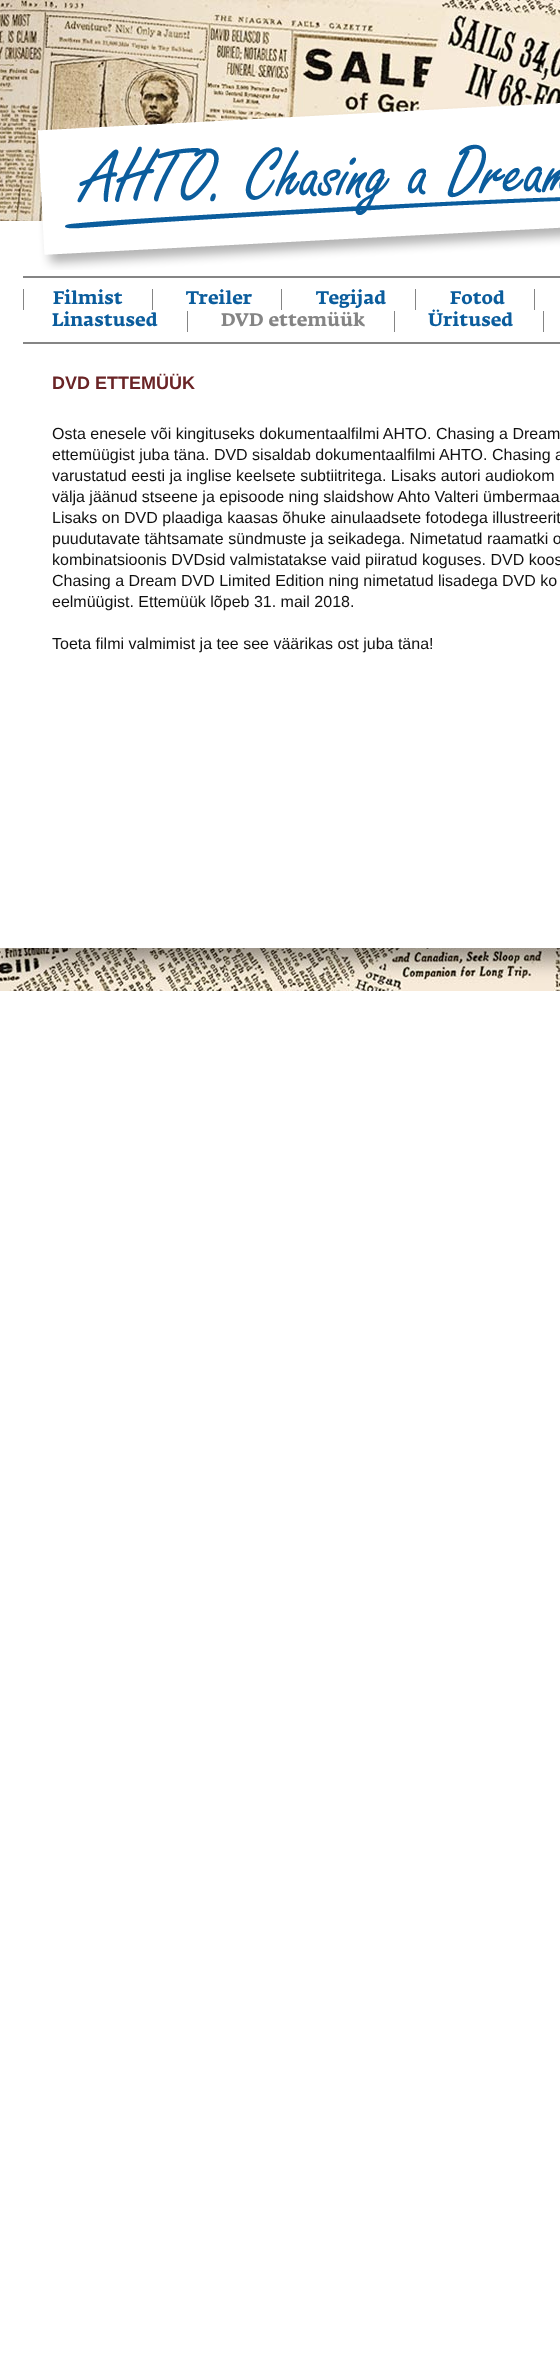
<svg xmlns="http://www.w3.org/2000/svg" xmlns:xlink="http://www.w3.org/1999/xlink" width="560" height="2357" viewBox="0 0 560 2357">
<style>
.cls-1{font:bold 18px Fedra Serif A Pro;fill:#0b5d9d}
.cls-2{font:bold 18px Fedra Serif A Pro;fill:#858585}
.cls-3{font:bold 18px Liberation Sans;fill:#6a2426}
.cls-4{font:16px Liberation Sans;fill:#111111}
</style>
<rect width="100%" height="100%" fill="#ffffff"/>
<image xlink:href="image0.png" x="0" y="0" width="560" height="991"/>
<rect fill="#000000" fill-opacity="0.4" filter="blur(10px)" x="0" y="233" width="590" height="727"/>
<rect fill="#ffffff" x="0" y="221" width="560" height="727"/>
<image xlink:href="image1.png" x="37" y="103" width="523" height="167"/>
<rect fill="#858585" x="23" y="276" width="537" height="2"/>
<rect fill="#858585" x="23" y="342" width="537" height="2"/>
<rect fill="#858585" x="152" y="289" width="1" height="21"/>
<rect fill="#858585" x="23" y="289" width="1" height="21"/>
<rect fill="#858585" x="281" y="289" width="1" height="21"/>
<rect fill="#858585" x="415" y="289" width="1" height="21"/>
<rect fill="#858585" x="534" y="289" width="1" height="21"/>
<rect fill="#858585" x="187" y="311" width="1" height="21"/>
<rect fill="#858585" x="394" y="311" width="1" height="21"/>
<rect fill="#858585" x="543" y="311" width="1" height="21"/>
<text class="cls-1" x="53" y="304">Filmist</text>
<text class="cls-1" x="186" y="304">Treiler</text>
<text class="cls-1" x="316" y="304">Tegijad</text>
<text class="cls-1" x="450" y="304">Fotod</text>
<text class="cls-1" x="52" y="326">Linastused</text>
<text class="cls-2" x="221" y="326">DVD ettemüük</text>
<text class="cls-1" x="428" y="326">Üritused</text>
<text class="cls-3" x="52" y="389">DVD ETTEMÜÜK</text>
<text class="cls-4"><tspan x="52" y="439">Osta enesele või kingituseks dokumentaalfilmi AHTO. Chasing a Dream</tspan><tspan x="52" y="460">ettemüügist juba täna. DVD sisaldab dokumentaalfilmi AHTO. Chasing a</tspan><tspan x="52" y="481">varustatud eesti ja inglise keelsete subtiitritega. Lisaks autori audiokom</tspan><tspan x="52" y="502">välja jäänud stseene ja episoode ning slaidshow Ahto Valteri ümbermaa</tspan><tspan x="52" y="523">Lisaks on DVD plaadiga kaasas õhuke ainulaadsete fotodega illustreerit</tspan><tspan x="52" y="544">puudutavate tähtsamate sündmuste ja seikadega. Nimetatud raamatki o</tspan><tspan x="52" y="565">kombinatsioonis DVDsid valmistatakse vaid piiratud koguses. DVD koos</tspan><tspan x="52" y="586">Chasing a Dream DVD Limited Edition ning nimetatud lisadega DVD ko</tspan><tspan x="52" y="607">eelmüügist. Ettemüük lõpeb 31. mail 2018.</tspan></text>
<text class="cls-4" x="52" y="649">Toeta filmi valmimist ja tee see väärikas ost juba täna!</text>
</svg>
